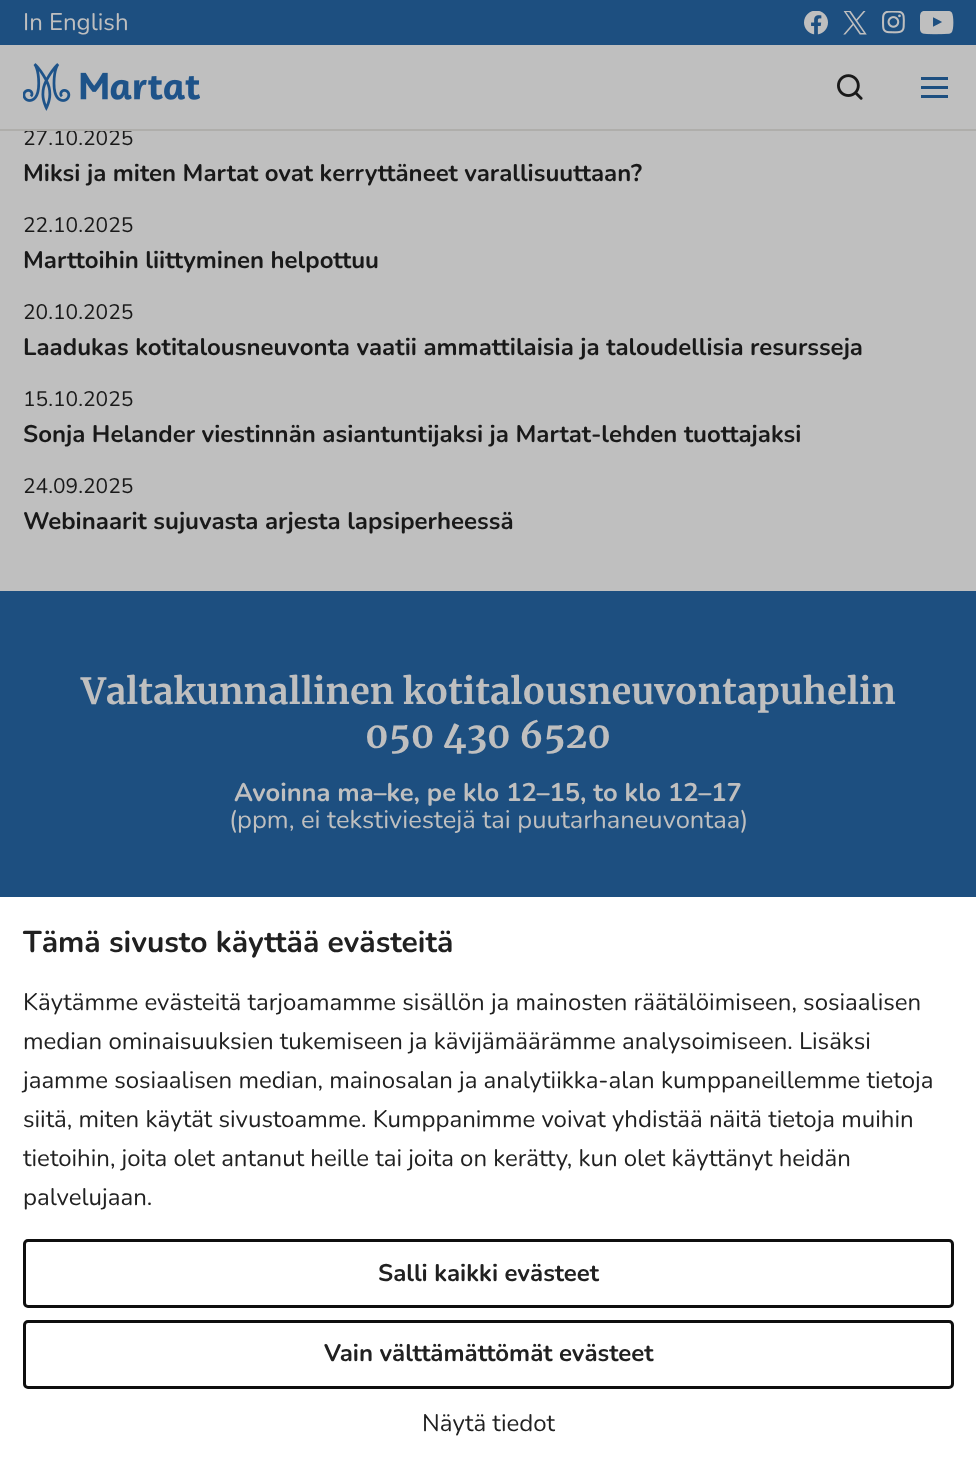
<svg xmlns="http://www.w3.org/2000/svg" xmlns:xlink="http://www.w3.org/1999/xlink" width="976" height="1470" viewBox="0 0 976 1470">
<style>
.cls-1{font:24px Nunito;fill:#bfbfbf}
.cls-2{font:21px Nunito;fill:#191919}
.cls-3{font:bold 24px Nunito;fill:#191919}
.cls-4{font:bold 36px Merriweather;fill:#bfbfbf}
.cls-5{font:bold 25.5px Nunito;fill:#bfbfbf}
.cls-6{font:25.5px Nunito;fill:#bfbfbf}
.cls-7{font:bold 30px Nunito;fill:#212121}
.cls-8{font:24px Nunito;fill:#212121}
.cls-9{font:bold 24px Nunito;fill:#212121}
</style>
<rect width="100%" height="100%" fill="#bfbfbf"/>
<rect fill="#1d4f80" x="0" y="0" width="976" height="45"/>
<image xlink:href="image0.png" x="804" y="11" width="24" height="24"/>
<image xlink:href="image1.png" x="843" y="11" width="24" height="24"/>
<image xlink:href="image2.png" x="882" y="11" width="23" height="23"/>
<image xlink:href="image3.png" x="920" y="11" width="34" height="24"/>
<image xlink:href="image4.png" x="23" y="63" width="177" height="48"/>
<image xlink:href="image5.png" x="837" y="74" width="26" height="26"/>
<rect fill="#1d4f80" x="921" y="86" width="27" height="3"/>
<rect fill="#1d4f80" x="921" y="77" width="27" height="3"/>
<rect fill="#1d4f80" x="921" y="95" width="27" height="3"/>
<rect fill="#1d4f80" x="0" y="591" width="976" height="306"/>
<rect fill="#ffffff" x="0" y="897" width="976" height="573"/>
<rect fill="none" stroke="#0f0f0f" stroke-width="3" x="24.5" y="1240.5" width="928" height="66" rx="3.5"/>
<rect fill="none" stroke="#0f0f0f" stroke-width="3" x="24.5" y="1321.5" width="928" height="66" rx="3.5"/>
<text class="cls-1" x="23" y="30">In English</text>
<text class="cls-2" x="23" y="145">27.10.2025</text>
<rect fill="#afaeab" x="0" y="129" width="976" height="2"/>
<text class="cls-3" x="23" y="181">Miksi ja miten Martat ovat kerryttäneet varallisuuttaan?</text>
<text class="cls-2" x="23" y="232">22.10.2025</text>
<text class="cls-3" x="23" y="268">Marttoihin liittyminen helpottuu</text>
<text class="cls-2" x="23" y="319">20.10.2025</text>
<text class="cls-3" x="23" y="355">Laadukas kotitalousneuvonta vaatii ammattilaisia ja taloudellisia resursseja</text>
<text class="cls-2" x="23" y="406">15.10.2025</text>
<text class="cls-3" x="23" y="442">Sonja Helander viestinnän asiantuntijaksi ja Martat-lehden tuottajaksi</text>
<text class="cls-2" x="23" y="493">24.09.2025</text>
<text class="cls-3" x="23" y="529">Webinaarit sujuvasta arjesta lapsiperheessä</text>
<text class="cls-4" x="81" y="704">Valtakunnallinen kotitalousneuvontapuhelin</text>
<text class="cls-4" x="365" y="748">050 430 6520</text>
<text class="cls-5" x="234" y="801">Avoinna ma–ke, pe klo 12–15, to klo 12–17</text>
<text class="cls-6" x="229" y="828">(ppm, ei tekstiviestejä tai puutarhaneuvontaa)</text>
<text class="cls-7" x="23" y="952">Tämä sivusto käyttää evästeitä</text>
<text class="cls-8"><tspan x="23" y="1010">Käytämme evästeitä tarjoamamme sisällön ja mainosten räätälöimiseen, sosiaalisen</tspan><tspan x="23" y="1049">median ominaisuuksien tukemiseen ja kävijämäärämme analysoimiseen. Lisäksi</tspan><tspan x="23" y="1088">jaamme sosiaalisen median, mainosalan ja analytiikka-alan kumppaneillemme tietoja</tspan><tspan x="23" y="1127">siitä, miten käytät sivustoamme. Kumppanimme voivat yhdistää näitä tietoja muihin</tspan><tspan x="23" y="1166">tietoihin, joita olet antanut heille tai joita on kerätty, kun olet käyttänyt heidän</tspan><tspan x="23" y="1205">palvelujaan.</tspan></text>
<text class="cls-9" x="378" y="1281">Salli kaikki evästeet</text>
<text class="cls-9" x="324" y="1361">Vain välttämättömät evästeet</text>
<text class="cls-8" x="422" y="1431">Näytä tiedot</text>
</svg>
